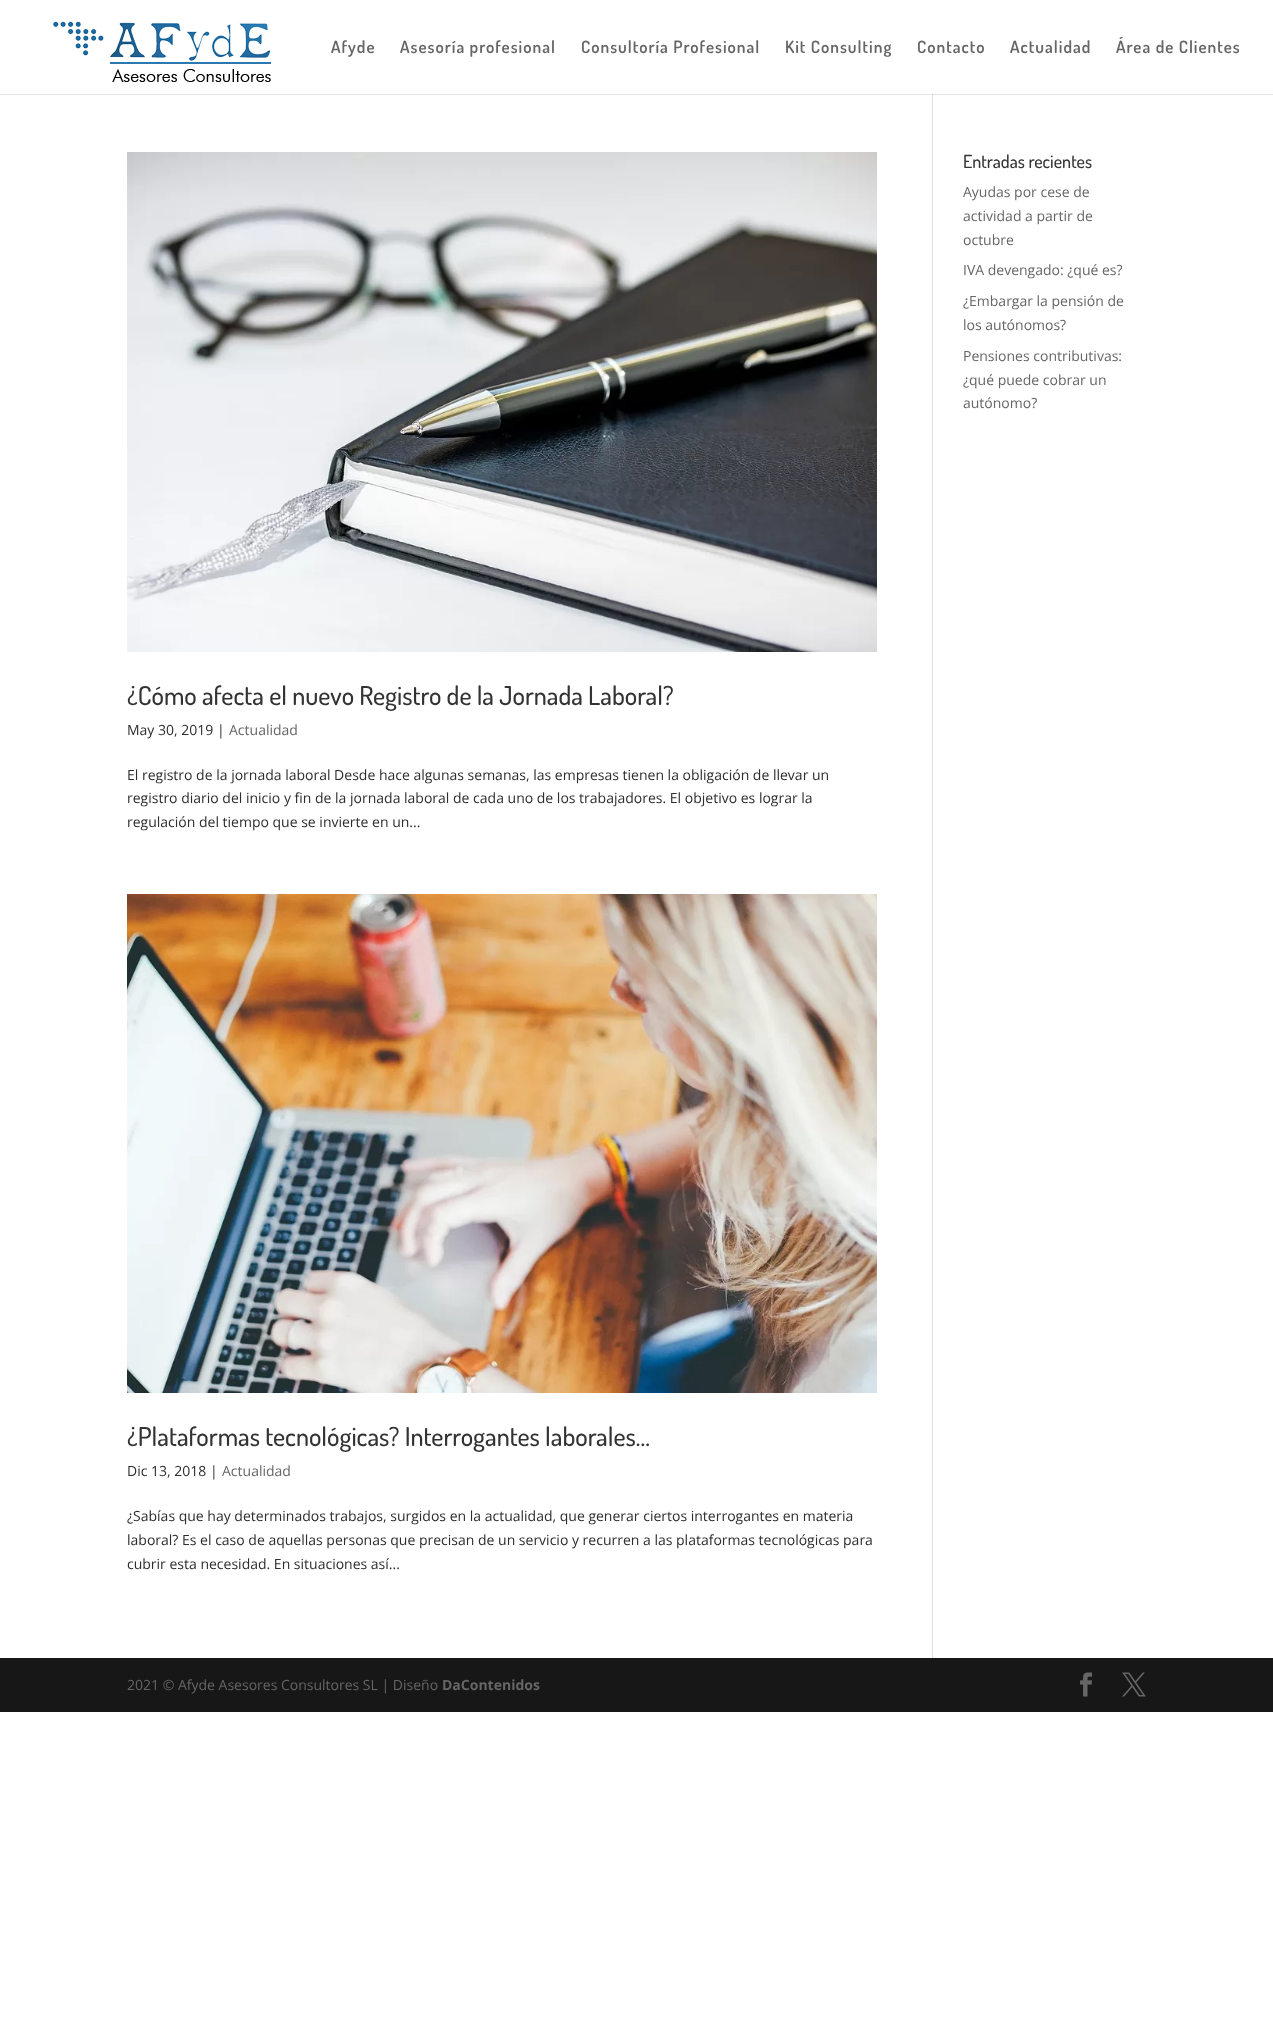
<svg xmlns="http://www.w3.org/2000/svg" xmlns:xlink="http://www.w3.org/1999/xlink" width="1273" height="2044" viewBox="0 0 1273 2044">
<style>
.cls-1{font:600 17px Dosis;letter-spacing:1px;fill:#666666}
.cls-2{font:500 18px Dosis;fill:#333333}
.cls-3{font:14px Open Sans;fill:#666666}
.cls-4{font:500 26px Dosis;fill:#333333}
.cls-5{font:14px Open Sans;fill:#2d2d2d}
.cls-6{font:bold 14px Open Sans;fill:#666666}
</style>
<rect width="100%" height="100%" fill="#ffffff"/>
<rect fill="#e6e6e6" x="0" y="94" width="1273" height="1"/>
<image xlink:href="image0.png" x="53" y="21" width="218" height="61"/>
<rect fill="#e2e2e2" x="932" y="94" width="1" height="1564"/>
<rect fill="#cbcbcb" x="932" y="94" width="1" height="1"/>
<image xlink:href="image1.png" x="127" y="152" width="750" height="500"/>
<image xlink:href="image2.png" x="127" y="894" width="750" height="499"/>
<rect fill="#171717" x="0" y="1658" width="1273" height="54"/>
<image xlink:href="image3.png" x="1080" y="1672" width="12" height="25"/>
<image xlink:href="image4.png" x="1122" y="1672" width="24" height="25"/>
<text class="cls-1" x="331" y="53">Afyde</text>
<text class="cls-1" x="400" y="53">Asesoría profesional</text>
<text class="cls-1" x="581" y="53">Consultoría Profesional</text>
<text class="cls-1" x="785" y="53">Kit Consulting</text>
<text class="cls-1" x="917" y="53">Contacto</text>
<text class="cls-1" x="1010" y="53">Actualidad</text>
<text class="cls-1" x="1116" y="53">Área de Clientes</text>
<text class="cls-2" x="963" y="168">Entradas recientes</text>
<text class="cls-3"><tspan x="963" y="197">Ayudas por cese de</tspan><tspan x="963" y="221">actividad a partir de</tspan><tspan x="963" y="245">octubre</tspan></text>
<text class="cls-3" x="963" y="275">IVA devengado: ¿qué es?</text>
<text class="cls-3"><tspan x="963" y="306">¿Embargar la pensión de</tspan><tspan x="963" y="330">los autónomos?</tspan></text>
<text class="cls-3"><tspan x="963" y="361">Pensiones contributivas:</tspan><tspan x="963" y="385">¿qué puede cobrar un</tspan><tspan x="963" y="408">autónomo?</tspan></text>
<text class="cls-4" x="127" y="705">¿Cómo afecta el nuevo Registro de la Jornada Laboral?</text>
<text class="cls-5" x="127" y="735">May 30, 2019 |</text>
<text class="cls-3" x="229" y="735">Actualidad</text>
<text class="cls-5"><tspan x="127" y="780">El registro de la jornada laboral Desde hace algunas semanas, las empresas tienen la obligación de llevar un</tspan><tspan x="127" y="803">registro diario del inicio y fin de la jornada laboral de cada uno de los trabajadores. El objetivo es lograr la</tspan><tspan x="127" y="827">regulación del tiempo que se invierte en un...</tspan></text>
<text class="cls-4" x="127" y="1446">¿Plataformas tecnológicas? Interrogantes laborales…</text>
<text class="cls-5" x="127" y="1476">Dic 13, 2018 |</text>
<text class="cls-3" x="222" y="1476">Actualidad</text>
<text class="cls-5"><tspan x="127" y="1521">¿Sabías que hay determinados trabajos, surgidos en la actualidad, que generar ciertos interrogantes en materia</tspan><tspan x="127" y="1545">laboral? Es el caso de aquellas personas que precisan de un servicio y recurren a las plataformas tecnológicas para</tspan><tspan x="127" y="1569">cubrir esta necesidad. En situaciones así...</tspan></text>
<text class="cls-3" x="127" y="1690">2021 © Afyde Asesores Consultores SL | Diseño</text>
<text class="cls-6" x="442" y="1690">DaContenidos</text>
</svg>
